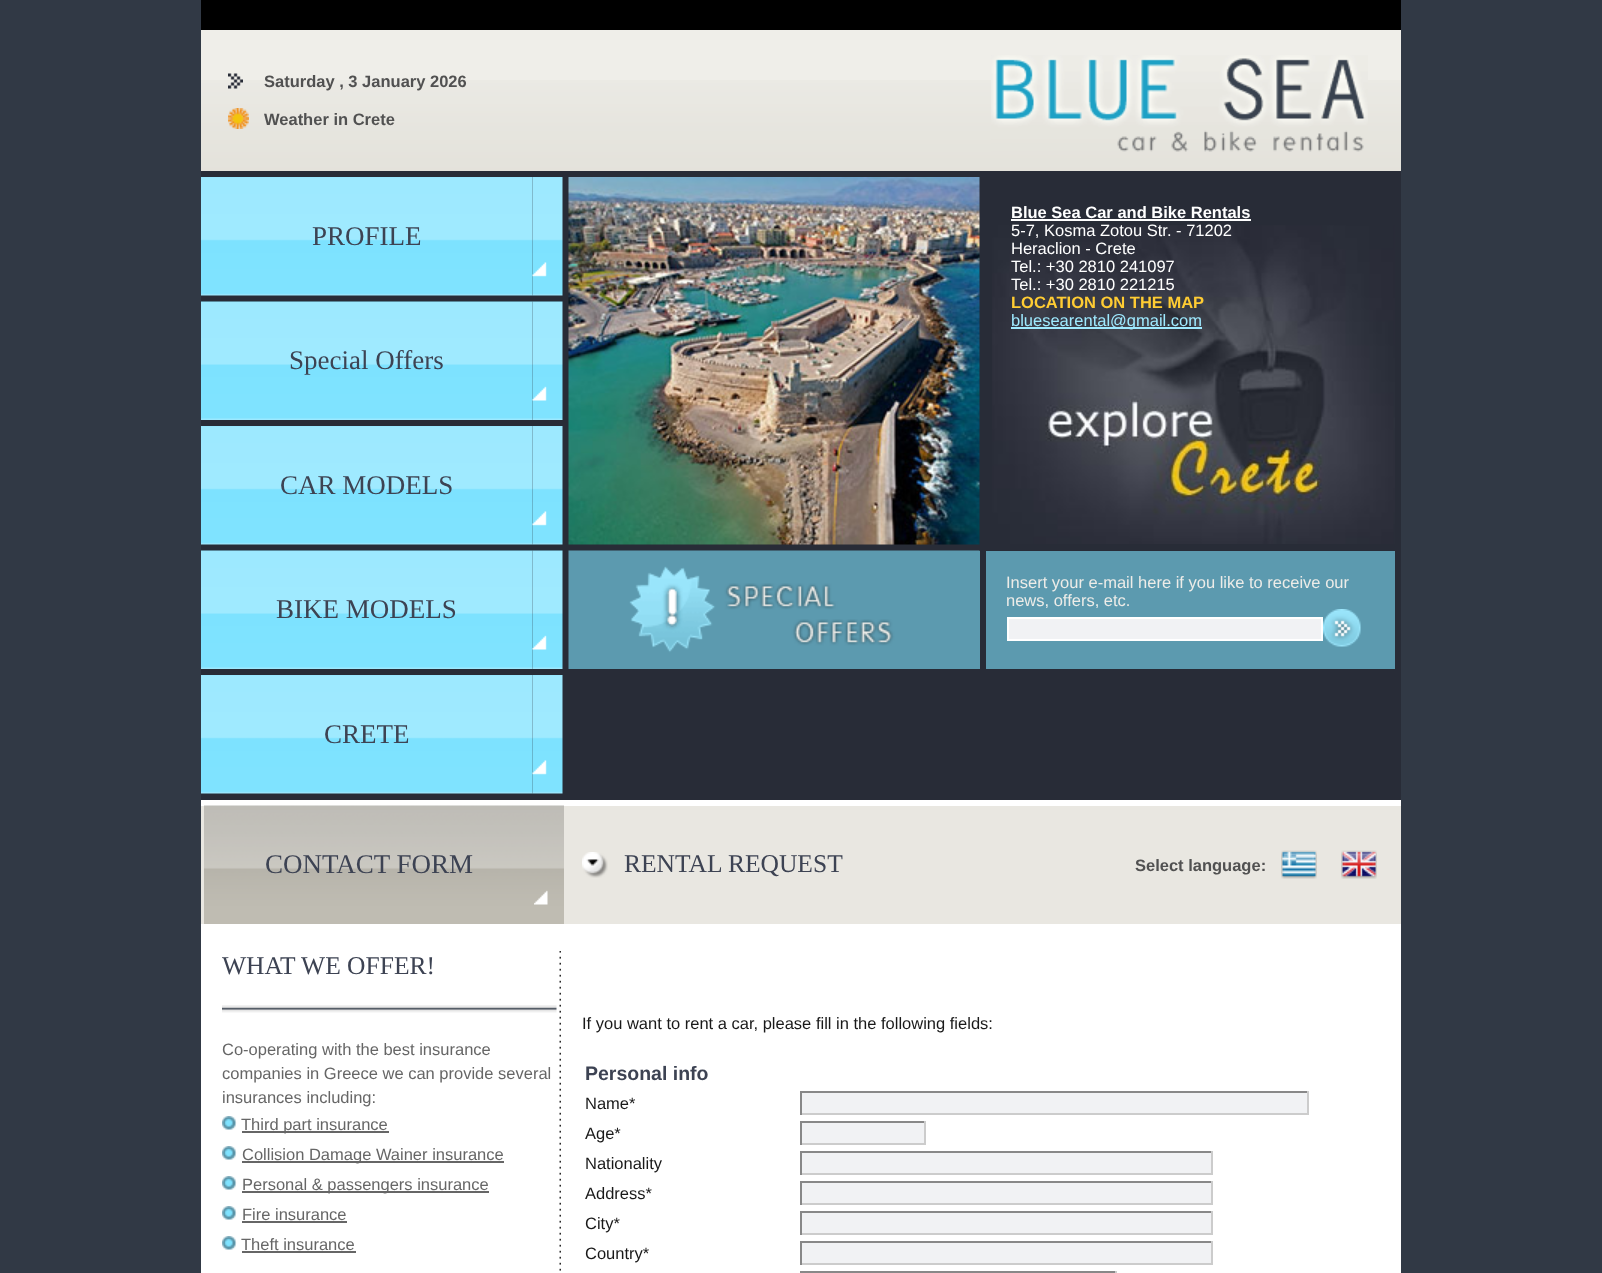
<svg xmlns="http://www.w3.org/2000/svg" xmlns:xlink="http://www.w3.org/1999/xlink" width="1602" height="1273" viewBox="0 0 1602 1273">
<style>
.cls-1{font:bold 16.5px Liberation Sans;fill:#515151}
.cls-2{font:27px Liberation Serif;fill:#3d4353}
.cls-3{font:bold 16.5px Liberation Sans;fill:#ffffff}
.cls-4{font:16.5px Liberation Sans;fill:#ffffff}
.cls-5{font:bold 16.5px Liberation Sans;fill:#ffcc33}
.cls-6{font:16.5px Liberation Sans;fill:#9feaff}
.cls-7{font:16.5px Liberation Sans;fill:#edece8}
.cls-8{font:25.5px Liberation Serif;fill:#3d4353}
.cls-9{font:16.5px Liberation Sans;fill:#666666}
.cls-10{font:16.5px Liberation Sans;fill:#191919}
.cls-11{font:bold 19.5px Liberation Sans;fill:#3d4353}
</style>
<rect width="100%" height="100%" fill="#313945"/>
<rect fill="#000000" x="201" y="0" width="1200" height="30"/>
<rect fill="#efeee9" x="201" y="30" width="1200" height="50"/>
<image xlink:href="image0.png" x="201" y="80" width="1200" height="91"/>
<image xlink:href="image1.png" x="228" y="73" width="15" height="16"/>
<image xlink:href="image2.png" x="228" y="108" width="21" height="21"/>
<image xlink:href="image3.png" x="991" y="55" width="377" height="97"/>
<rect fill="#282c37" x="201" y="171" width="1200" height="629"/>
<image xlink:href="image4.png" x="201" y="177" width="332" height="119"/>
<image xlink:href="image5.png" x="532" y="177" width="31" height="119"/>
<image xlink:href="image6.png" x="532" y="262" width="15" height="15"/>
<image xlink:href="image7.png" x="201" y="301" width="332" height="119"/>
<image xlink:href="image8.png" x="532" y="301" width="31" height="119"/>
<image xlink:href="image9.png" x="532" y="386" width="15" height="15"/>
<image xlink:href="image4.png" x="201" y="426" width="332" height="119"/>
<image xlink:href="image5.png" x="532" y="426" width="31" height="119"/>
<image xlink:href="image6.png" x="532" y="511" width="15" height="15"/>
<image xlink:href="image10.png" x="201" y="550" width="332" height="119"/>
<image xlink:href="image11.png" x="532" y="550" width="31" height="119"/>
<image xlink:href="image9.png" x="532" y="635" width="15" height="15"/>
<image xlink:href="image4.png" x="201" y="675" width="332" height="119"/>
<image xlink:href="image5.png" x="532" y="675" width="31" height="119"/>
<image xlink:href="image6.png" x="532" y="760" width="15" height="15"/>
<image xlink:href="image12.png" x="568" y="177" width="412" height="368"/>
<rect fill="#5c9aaf" x="979" y="551" width="1" height="118"/>
<image xlink:href="image13.png" x="568" y="550" width="412" height="119"/>
<image xlink:href="image14.png" x="992" y="225" width="403" height="319"/>
<rect fill="#ffffff" x="1011" y="219" width="240" height="2"/>
<rect fill="#9feaff" x="1011" y="327" width="191" height="2"/>
<rect fill="#5c9aaf" x="986" y="551" width="409" height="118"/>
<rect fill="#f1f2f4" stroke="#ffffff" stroke-width="2" x="1008" y="618" width="314" height="22"/>
<image xlink:href="image15.png" x="1323" y="609" width="38" height="38"/>
<rect fill="#ffffff" x="201" y="800" width="1200" height="6"/>
<rect fill="#e9e7e1" x="201" y="806" width="1200" height="118"/>
<image xlink:href="image16.png" x="204" y="805" width="330" height="119"/>
<image xlink:href="image17.png" x="534" y="805" width="30" height="119"/>
<image xlink:href="image18.png" x="534" y="890" width="14" height="15"/>
<image xlink:href="image19.png" x="582" y="852" width="26" height="26"/>
<image xlink:href="image20.png" x="1281" y="850" width="36" height="29"/>
<image xlink:href="image21.png" x="1341" y="850" width="36" height="29"/>
<rect fill="#ffffff" x="201" y="924" width="1200" height="349"/>
<image xlink:href="image22.png" x="222" y="1005" width="335" height="8"/>
<image xlink:href="image23.png" x="222" y="1116" width="15" height="14"/>
<rect fill="#666666" x="242" y="1131" width="147" height="2"/>
<image xlink:href="image23.png" x="222" y="1146" width="15" height="14"/>
<rect fill="#666666" x="242" y="1161" width="262" height="2"/>
<image xlink:href="image23.png" x="222" y="1176" width="15" height="14"/>
<rect fill="#666666" x="242" y="1191" width="247" height="2"/>
<image xlink:href="image23.png" x="222" y="1206" width="15" height="14"/>
<rect fill="#666666" x="242" y="1221" width="105" height="2"/>
<image xlink:href="image23.png" x="222" y="1236" width="15" height="14"/>
<rect fill="#666666" x="242" y="1251" width="114" height="2"/>
<image xlink:href="image24.png" x="559" y="951" width="2" height="320"/>
<rect fill="#f1f2f4" x="802" y="1093" width="505" height="20"/>
<rect fill="#888888" x="800" y="1091" width="508" height="2"/>
<rect fill="#cccccc" x="1307" y="1091" width="2" height="24"/>
<rect fill="#cccccc" x="800" y="1113" width="508" height="2"/>
<rect fill="#888888" x="800" y="1091" width="2" height="24"/>
<rect fill="#f1f2f4" x="802" y="1123" width="122" height="20"/>
<rect fill="#888888" x="800" y="1121" width="126" height="2"/>
<rect fill="#cccccc" x="924" y="1121" width="2" height="24"/>
<rect fill="#cccccc" x="800" y="1143" width="126" height="2"/>
<rect fill="#888888" x="800" y="1121" width="2" height="24"/>
<rect fill="#f1f2f4" x="802" y="1153" width="409" height="20"/>
<rect fill="#888888" x="800" y="1151" width="412" height="2"/>
<rect fill="#cccccc" x="1211" y="1151" width="2" height="24"/>
<rect fill="#cccccc" x="800" y="1173" width="412" height="2"/>
<rect fill="#888888" x="800" y="1151" width="2" height="24"/>
<rect fill="#f1f2f4" x="802" y="1183" width="409" height="20"/>
<rect fill="#888888" x="800" y="1181" width="412" height="2"/>
<rect fill="#cccccc" x="1211" y="1181" width="2" height="24"/>
<rect fill="#cccccc" x="800" y="1203" width="412" height="2"/>
<rect fill="#888888" x="800" y="1181" width="2" height="24"/>
<rect fill="#f1f2f4" x="802" y="1213" width="409" height="20"/>
<rect fill="#888888" x="800" y="1211" width="412" height="2"/>
<rect fill="#cccccc" x="1211" y="1211" width="2" height="24"/>
<rect fill="#cccccc" x="800" y="1233" width="412" height="2"/>
<rect fill="#888888" x="800" y="1211" width="2" height="24"/>
<rect fill="#f1f2f4" x="802" y="1243" width="409" height="20"/>
<rect fill="#888888" x="800" y="1241" width="412" height="2"/>
<rect fill="#cccccc" x="1211" y="1241" width="2" height="24"/>
<rect fill="#cccccc" x="800" y="1263" width="412" height="2"/>
<rect fill="#888888" x="800" y="1241" width="2" height="24"/>
<rect fill="#888888" x="800" y="1271" width="316" height="2"/>
<rect fill="#cccccc" x="1115" y="1271" width="2" height="2"/>
<text class="cls-1" x="264" y="87">Saturday , 3 January 2026</text>
<text class="cls-1" x="264" y="125">Weather in Crete</text>
<text class="cls-2" x="312" y="245">PROFILE</text>
<text class="cls-2" x="289" y="369">Special Offers</text>
<text class="cls-2" x="280" y="494">CAR MODELS</text>
<text class="cls-2" x="276" y="618">BIKE MODELS</text>
<text class="cls-2" x="324" y="743">CRETE</text>
<text class="cls-3" x="1011" y="218">Blue Sea Car and Bike Rentals</text>
<text class="cls-4"><tspan x="1011" y="236">5-7, Kosma Zotou Str. - 71202</tspan><tspan x="1011" y="254">Heraclion - Crete</tspan><tspan x="1011" y="272">Tel.: +30 2810 241097</tspan><tspan x="1011" y="290">Tel.: +30 2810 221215</tspan></text>
<text class="cls-5" x="1011" y="308">LOCATION ON THE MAP</text>
<text class="cls-6" x="1011" y="326">bluesearental@gmail.com</text>
<text class="cls-7"><tspan x="1006" y="588">Insert your e-mail here if you like to receive our</tspan><tspan x="1006" y="606">news, offers, etc.</tspan></text>
<text class="cls-2" x="265" y="873">CONTACT FORM</text>
<text class="cls-8" x="624" y="872">RENTAL REQUEST</text>
<text class="cls-1" x="1135" y="871">Select language:</text>
<text class="cls-8" x="222" y="974">WHAT WE OFFER!</text>
<text class="cls-9"><tspan x="222" y="1055">Co-operating with the best insurance</tspan><tspan x="222" y="1079">companies in Greece we can provide several</tspan><tspan x="222" y="1103">insurances including:</tspan></text>
<text class="cls-9" x="241" y="1130">Third part insurance</text>
<text class="cls-9"><tspan x="242" y="1160">Collision Damage Wainer insurance</tspan><tspan x="242" y="1190">Personal &amp; passengers insurance</tspan><tspan x="242" y="1220">Fire insurance</tspan></text>
<text class="cls-9" x="241" y="1250">Theft insurance</text>
<text class="cls-10" x="582" y="1029">If you want to rent a car, please fill in the following fields:</text>
<text class="cls-11" x="585" y="1080">Personal info</text>
<text class="cls-10"><tspan x="585" y="1109">Name*</tspan><tspan x="585" y="1139">Age*</tspan><tspan x="585" y="1169">Nationality</tspan><tspan x="585" y="1199">Address*</tspan><tspan x="585" y="1229">City*</tspan><tspan x="585" y="1259">Country*</tspan></text>
</svg>
